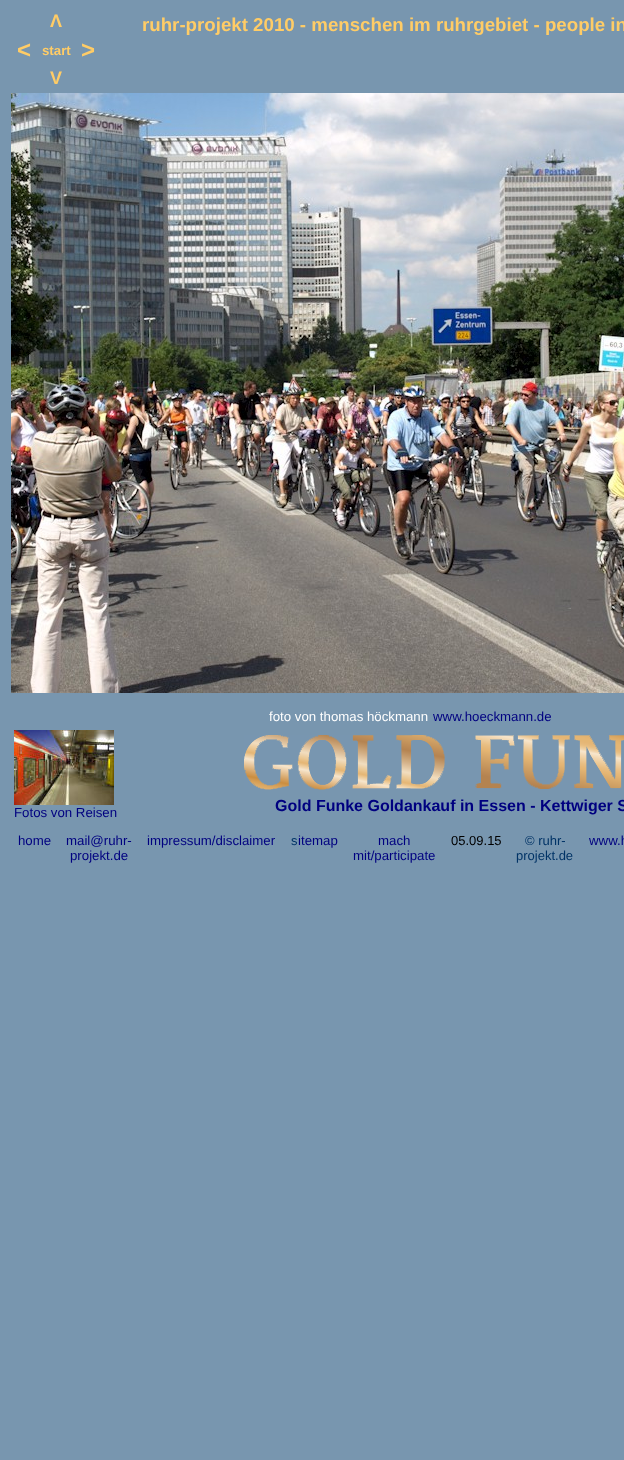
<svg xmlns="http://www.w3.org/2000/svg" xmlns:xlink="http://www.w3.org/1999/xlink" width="624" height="1460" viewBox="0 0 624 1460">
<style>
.cls-1{font:bold 18px Liberation Sans;fill:#ffcc66}
.cls-2{font:bold 18.7px Liberation Sans;fill:#ffcc66}
.cls-3{font:bold 24px Liberation Sans;fill:#ffcc66}
.cls-4{font:bold 13.25px Liberation Sans;fill:#ffcc66}
.cls-5{font:13.25px Liberation Sans;fill:#ffffff}
.cls-6{font:13.25px Liberation Sans;fill:#000080}
.cls-7{font:bold 16px Liberation Sans;fill:#000080}
.cls-8{font:13px Liberation Sans;fill:#003366}
.cls-9{font:13px Liberation Sans;fill:#000000}
</style>
<rect width="100%" height="100%" fill="#7896af"/>
<image xlink:href="image0.png" x="11" y="93" width="613" height="600"/>
<image xlink:href="image1.png" x="14" y="730" width="100" height="75"/>
<image xlink:href="image2.png" x="244" y="735" width="380" height="55"/>
<text class="cls-1" x="50" y="27">Λ</text>
<text class="cls-2" x="142" y="31">ruhr-projekt 2010 - menschen im ruhrgebiet - people in</text>
<text class="cls-3" x="17" y="58">&lt;</text>
<text class="cls-4" x="42" y="55">start</text>
<text class="cls-3" x="81" y="58">&gt;</text>
<text class="cls-1" x="50" y="84">V</text>
<text class="cls-5" x="269" y="721">foto von thomas höckmann</text>
<text class="cls-6" x="433" y="721">www.hoeckmann.de</text>
<text class="cls-6" x="14" y="817">Fotos von Reisen</text>
<text class="cls-7" x="275" y="811">Gold Funke Goldankauf in Essen - Kettwiger S</text>
<text class="cls-6" x="18" y="845">home</text>
<text class="cls-6" x="66" y="845">mail@ruhr-</text>
<text class="cls-6" x="70" y="860">projekt.de</text>
<text class="cls-6" x="147" y="845">impressum/disclaimer</text>
<text class="cls-8" x="291" y="845">s</text>
<text class="cls-6" x="298" y="845">itemap</text>
<text class="cls-6" x="378" y="845">mach</text>
<text class="cls-6" x="353" y="860">mit/participate</text>
<text class="cls-9" x="451" y="845">05.09.15</text>
<text class="cls-8" x="525" y="845">© ruhr-</text>
<text class="cls-8" x="516" y="860">projekt.de</text>
<text class="cls-6" x="589" y="845">www.h</text>
</svg>
